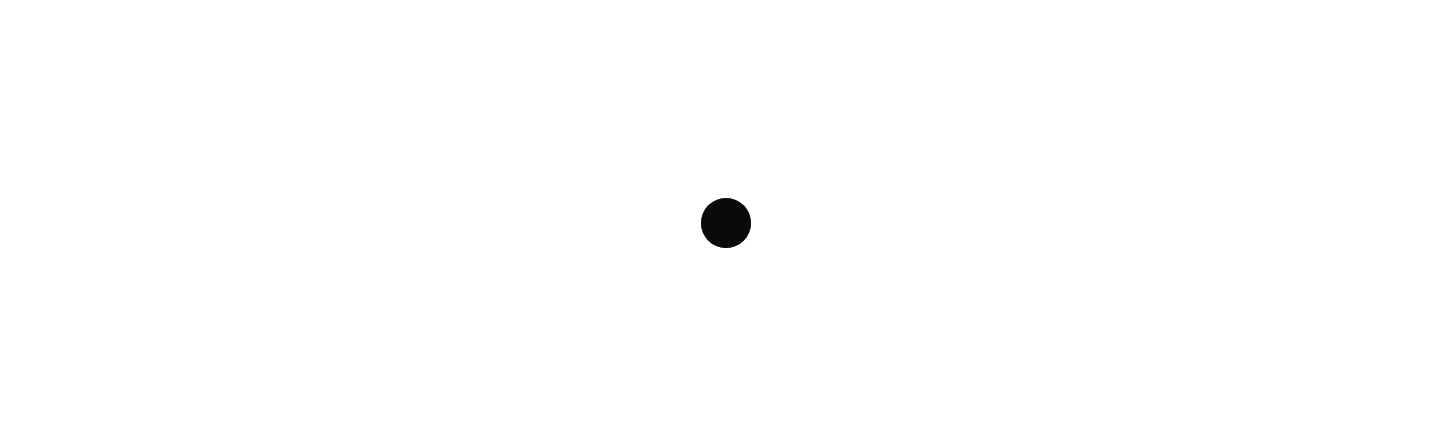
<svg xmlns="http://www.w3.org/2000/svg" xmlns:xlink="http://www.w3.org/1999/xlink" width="1451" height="446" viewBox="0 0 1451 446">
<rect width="100%" height="100%" fill="#ffffff"/>
<circle fill="#333333" cx="726" cy="223" r="25"/>
<circle fill="#000000" fill-opacity="0.8" cx="726" cy="223" r="25"/>
</svg>
